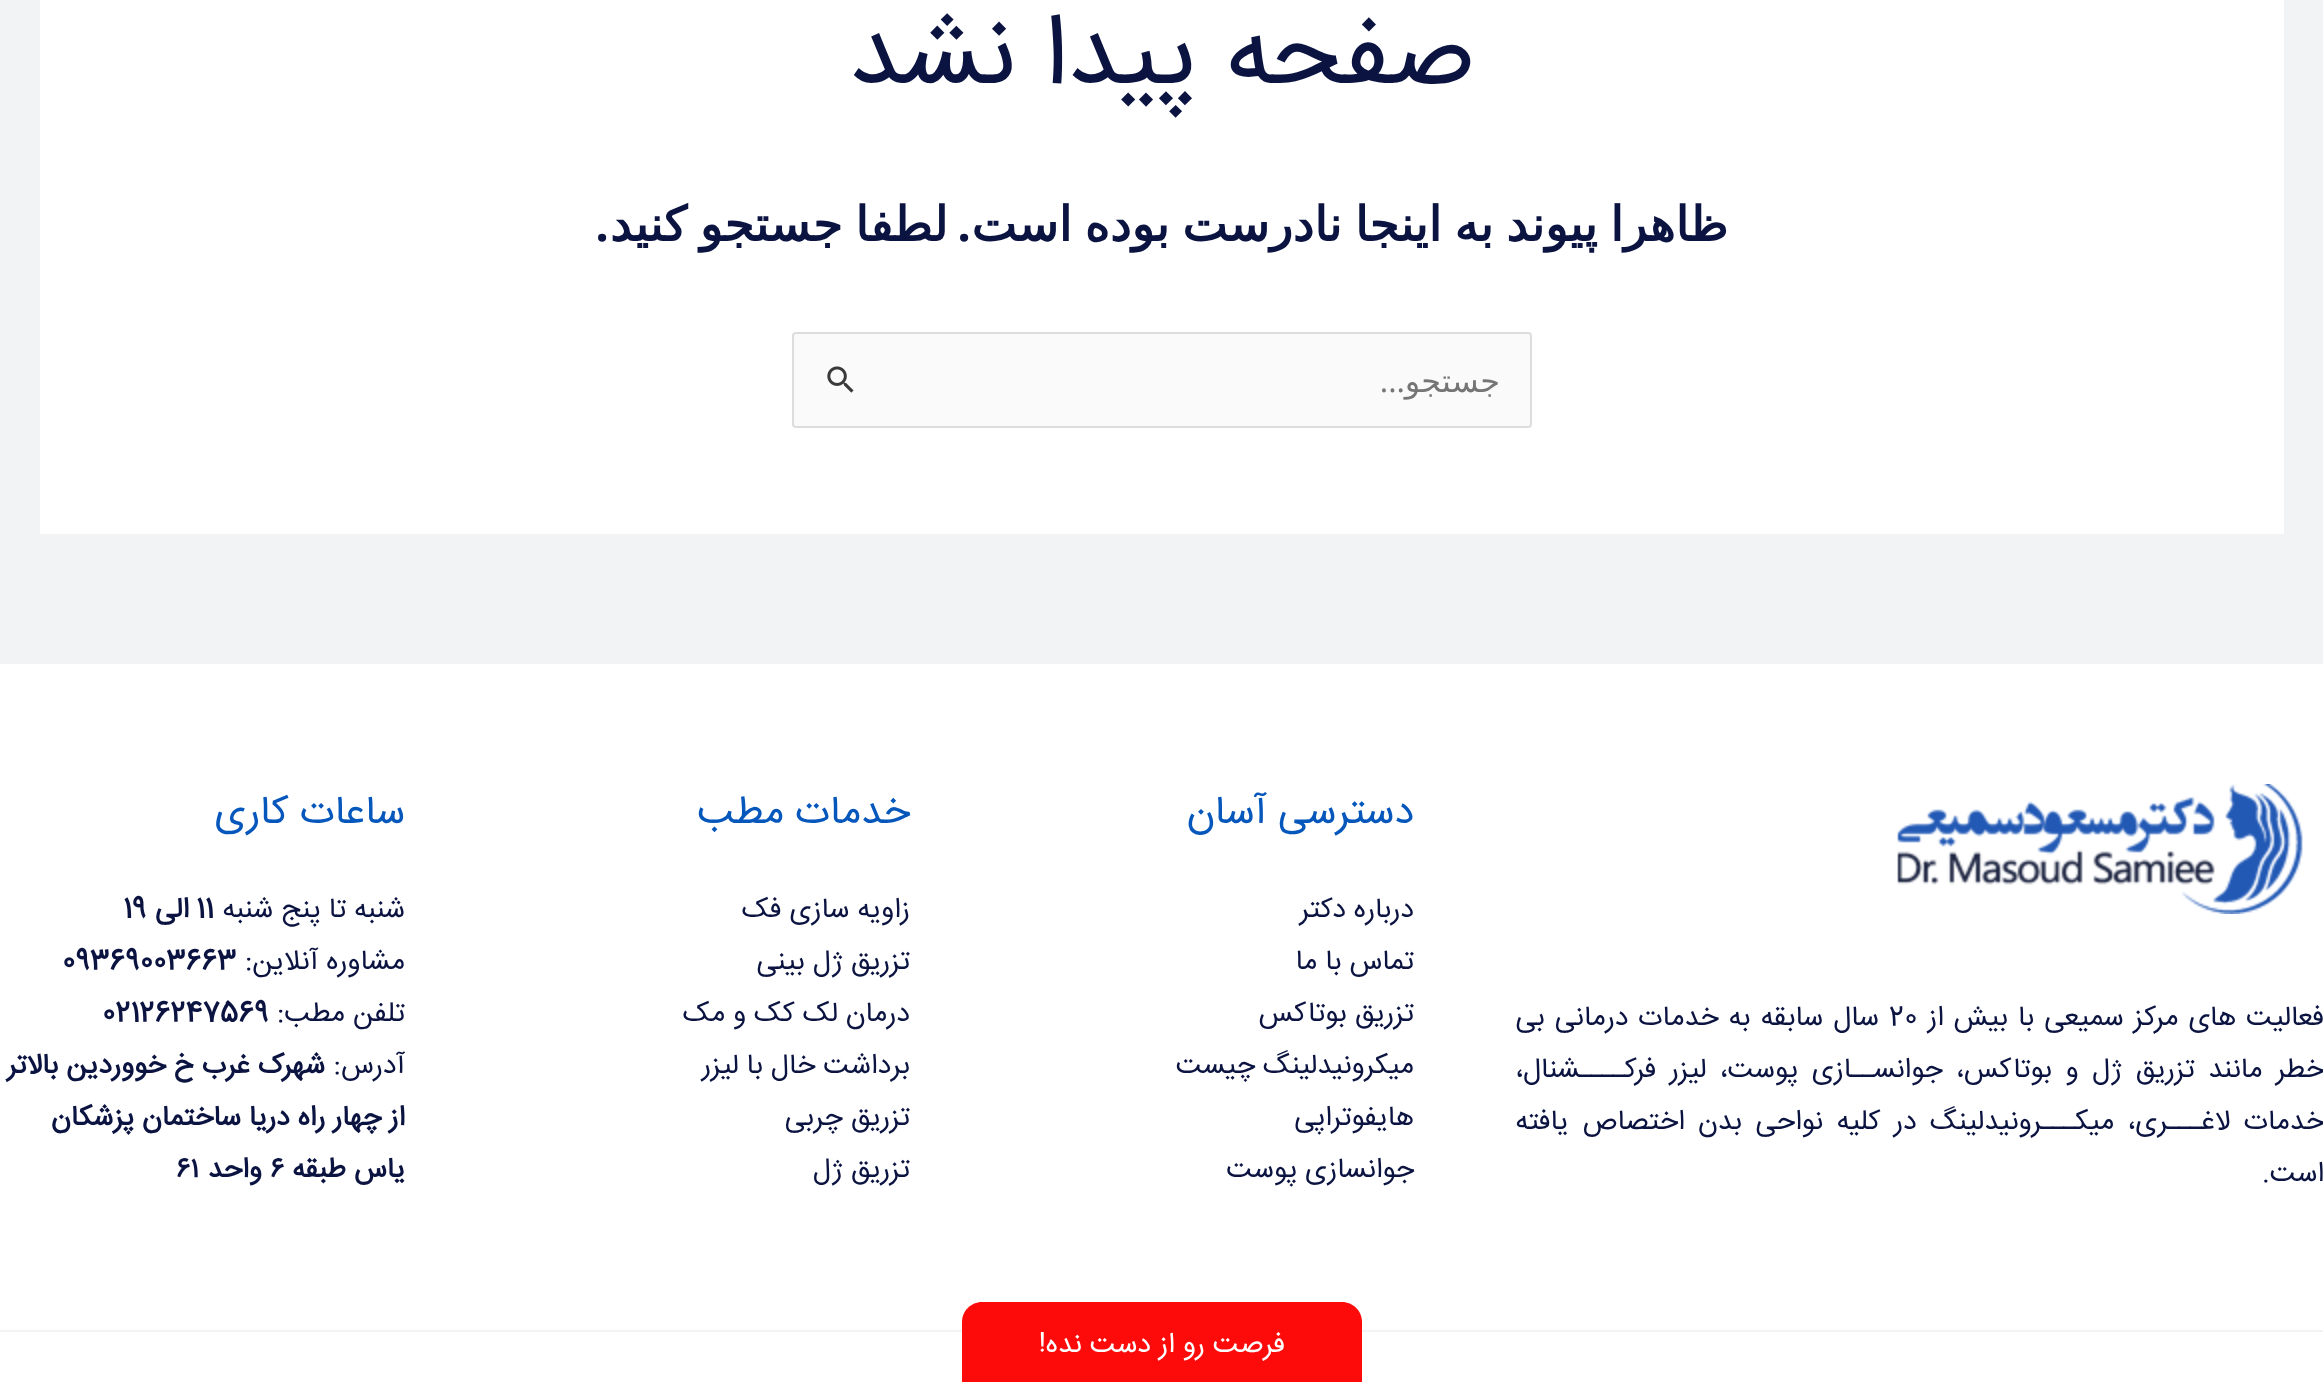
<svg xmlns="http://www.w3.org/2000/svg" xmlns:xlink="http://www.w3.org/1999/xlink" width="2323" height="1382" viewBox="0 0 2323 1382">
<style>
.cls-1{font:100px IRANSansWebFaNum;direction:rtl;fill:#0b1341}
.cls-2{font:bold 48px DejaVu Sans;direction:rtl;fill:#0b1341}
.cls-3{font:bold 48px Open Sans;direction:rtl;fill:#0b1341}
.cls-4{font:32px DejaVu Sans;direction:rtl;fill:#757575}
.cls-5{font:32px Open Sans;direction:rtl;fill:#757575}
.cls-6{font:28px IRANSansWebFaNum;direction:rtl;fill:#0b1341}
.cls-7{font:28px IRANSansWebFaNum;fill:#0b1341}
.cls-8{font:40px IRANSansWebFaNum;direction:rtl;fill:#0557bc}
.cls-9{font:bold 28px IRANSansWebFaNum;fill:#0b1341}
.cls-10{font:bold 28px IRANSansWebFaNum;direction:rtl;fill:#0b1341}
.cls-11{font:28px IRANSansWebFaNum;direction:rtl;fill:#ffffff}
</style>
<rect width="100%" height="100%" fill="#f1f3f4"/>
<rect fill="#ffffff" x="40" y="0" width="2244" height="534"/>
<rect fill="#fafafa" stroke="#dddddd" stroke-width="2" x="793" y="333" width="738" height="94" rx="3"/>
<image xlink:href="image0.png" x="827" y="366" width="27" height="27"/>
<rect fill="#ffffff" x="0" y="664" width="2323" height="718"/>
<image xlink:href="image1.png" x="1897" y="784" width="406" height="130"/>
<rect fill="#f1f3f4" x="0" y="1330" width="2323" height="2"/>
<path fill="#fd0a0a" d="M982 1302H1342C1353 1302 1362 1311 1362 1322V1382H962V1322C962 1311 971 1302 982 1302Z"/>
<text class="cls-1" x="1475" y="83">صفحه پیدا نشد</text>
<text class="cls-2" x="1728" y="241" word-spacing="-2.5">ظاهرا پیوند به اینجا نادرست بوده است</text>
<text class="cls-3" x="971" y="241">.</text>
<text class="cls-2" x="948" y="241" word-spacing="-2.5">لطفا جستجو کنید</text>
<text class="cls-3" x="609" y="241">.</text>
<text class="cls-4" x="1500" y="392">جستجو</text>
<text class="cls-5" x="1405" y="392">...</text>
<text class="cls-6" x="2324" y="1025" word-spacing="2">فعالیت های مرکز سمیعی با بیش از</text>
<text class="cls-7" x="1889" y="1025">20</text>
<text class="cls-6" x="1879" y="1025" word-spacing="2">سال سابقه به خدمات درمانی بی</text>
<text class="cls-6"><tspan x="2324" y="1077" word-spacing="5.5">خطر مانند تزریق ژل و بوتاکس، جوانســازی پوست، لیزر فرکــــشنال،</tspan><tspan x="2324" y="1129" word-spacing="5.5">خدمات لاغـــری، میکـــرونیدلینگ در کلیه نواحی بدن اختصاص یافته</tspan><tspan x="2324" y="1181">است.</tspan></text>
<text class="cls-8" x="1414" y="823">دسترسی آسان</text>
<text class="cls-6"><tspan x="1414" y="917">درباره دکتر</tspan><tspan x="1414" y="969">تماس با ما</tspan><tspan x="1414" y="1021">تزریق بوتاکس</tspan><tspan x="1414" y="1073">میکرونیدلینگ چیست</tspan><tspan x="1414" y="1125">هایفوتراپی</tspan><tspan x="1414" y="1177">جوانسازی پوست</tspan></text>
<text class="cls-8" x="910" y="823">خدمات مطب</text>
<text class="cls-6"><tspan x="910" y="917">زاویه سازی فک</tspan><tspan x="910" y="969">تزریق ژل بینی</tspan><tspan x="910" y="1021">درمان لک کک و مک</tspan><tspan x="910" y="1073">برداشت خال با لیزر</tspan><tspan x="910" y="1125">تزریق چربی</tspan><tspan x="910" y="1177">تزریق ژل</tspan></text>
<text class="cls-8" x="405" y="823">ساعات کاری</text>
<text class="cls-6" x="405" y="917">شنبه تا پنج شنبه</text>
<text class="cls-9" x="196" y="917">11</text>
<text class="cls-10" x="189" y="917">الی</text>
<text class="cls-9" x="123" y="917">19</text>
<text class="cls-6" x="405" y="969">مشاوره آنلاین:</text>
<text class="cls-9" x="62" y="969">09369003663</text>
<text class="cls-6" x="405" y="1021">تلفن مطب:</text>
<text class="cls-9" x="102" y="1021">02126247569</text>
<text class="cls-6" x="405" y="1073">آدرس:</text>
<text class="cls-10" x="325" y="1073">شهرک غرب خ خووردین بالاتر</text>
<text class="cls-10"><tspan x="405" y="1125">از چهار راه دریا ساختمان پزشکان</tspan><tspan x="405" y="1177">یاس طبقه</tspan></text>
<text class="cls-9" x="270" y="1177">۶</text>
<text class="cls-10" x="262" y="1177">واحد</text>
<text class="cls-9" x="176" y="1177">۶۱</text>
<text class="cls-11" x="1285" y="1352">فرصت رو از دست نده!</text>
</svg>
